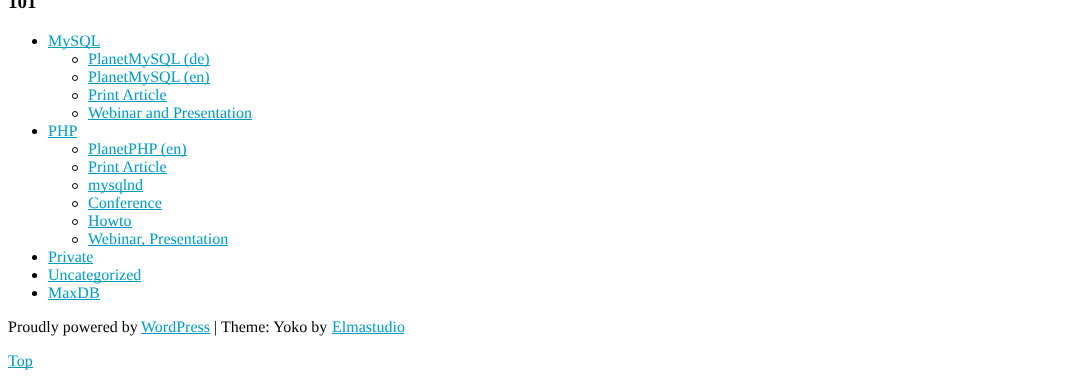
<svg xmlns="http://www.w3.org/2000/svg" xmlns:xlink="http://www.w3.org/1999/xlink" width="1071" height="378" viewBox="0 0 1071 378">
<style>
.cls-1{font:bold 19px Liberation Serif;fill:#000000}
.cls-2{font:16px Liberation Serif;fill:#009bc2}
.cls-3{font:16px Liberation Serif;fill:#000000}
</style>
<rect width="100%" height="100%" fill="#ffffff"/>
<circle fill="#000000" cx="34.5" cy="41.5" r="2.5"/>
<rect fill="#009bc2" x="48" y="47" width="52" height="1"/>
<circle fill="none" stroke="#000000" cx="75" cy="60" r="2.5"/>
<rect fill="#009bc2" x="88" y="65" width="122" height="1"/>
<circle fill="none" stroke="#000000" cx="75" cy="78" r="2.5"/>
<rect fill="#009bc2" x="88" y="83" width="122" height="1"/>
<circle fill="none" stroke="#000000" cx="75" cy="96" r="2.5"/>
<rect fill="#009bc2" x="88" y="101" width="79" height="1"/>
<circle fill="none" stroke="#000000" cx="75" cy="114" r="2.5"/>
<rect fill="#009bc2" x="88" y="119" width="164" height="1"/>
<circle fill="#000000" cx="34.5" cy="131.5" r="2.5"/>
<rect fill="#009bc2" x="48" y="137" width="29" height="1"/>
<circle fill="none" stroke="#000000" cx="75" cy="150" r="2.5"/>
<rect fill="#009bc2" x="88" y="155" width="99" height="1"/>
<circle fill="none" stroke="#000000" cx="75" cy="168" r="2.5"/>
<rect fill="#009bc2" x="88" y="173" width="79" height="1"/>
<circle fill="none" stroke="#000000" cx="75" cy="186" r="2.5"/>
<rect fill="#009bc2" x="88" y="191" width="55" height="1"/>
<circle fill="none" stroke="#000000" cx="75" cy="204" r="2.5"/>
<rect fill="#009bc2" x="88" y="209" width="74" height="1"/>
<circle fill="none" stroke="#000000" cx="75" cy="222" r="2.5"/>
<rect fill="#009bc2" x="88" y="227" width="44" height="1"/>
<circle fill="none" stroke="#000000" cx="75" cy="240" r="2.5"/>
<rect fill="#009bc2" x="88" y="245" width="140" height="1"/>
<circle fill="#000000" cx="34.5" cy="257.5" r="2.5"/>
<rect fill="#009bc2" x="48" y="263" width="45" height="1"/>
<circle fill="#000000" cx="34.5" cy="275.5" r="2.5"/>
<rect fill="#009bc2" x="48" y="281" width="93" height="1"/>
<circle fill="#000000" cx="34.5" cy="293.5" r="2.5"/>
<rect fill="#009bc2" x="48" y="299" width="52" height="1"/>
<rect fill="#009bc2" x="141" y="333" width="69" height="1"/>
<rect fill="#009bc2" x="332" y="333" width="72" height="1"/>
<rect fill="#009bc2" x="8" y="367" width="25" height="1"/>
<text class="cls-1" x="8" y="8">101</text>
<text class="cls-2" x="48" y="46">MySQL</text>
<text class="cls-2"><tspan x="88" y="64">PlanetMySQL (de)</tspan><tspan x="88" y="82">PlanetMySQL (en)</tspan><tspan x="88" y="100">Print Article</tspan><tspan x="88" y="118">Webinar and Presentation</tspan></text>
<text class="cls-2" x="48" y="136">PHP</text>
<text class="cls-2"><tspan x="88" y="154">PlanetPHP (en)</tspan><tspan x="88" y="172">Print Article</tspan><tspan x="88" y="190">mysqlnd</tspan><tspan x="88" y="208">Conference</tspan><tspan x="88" y="226">Howto</tspan><tspan x="88" y="244">Webinar, Presentation</tspan></text>
<text class="cls-2"><tspan x="48" y="262">Private</tspan><tspan x="48" y="280">Uncategorized</tspan><tspan x="48" y="298">MaxDB</tspan></text>
<text class="cls-3" x="8" y="332">Proudly powered by</text>
<text class="cls-2" x="141" y="332">WordPress</text>
<text class="cls-3" x="214" y="332">| Theme: Yoko by</text>
<text class="cls-2" x="332" y="332">Elmastudio</text>
<text class="cls-2" x="8" y="366">Top</text>
</svg>
